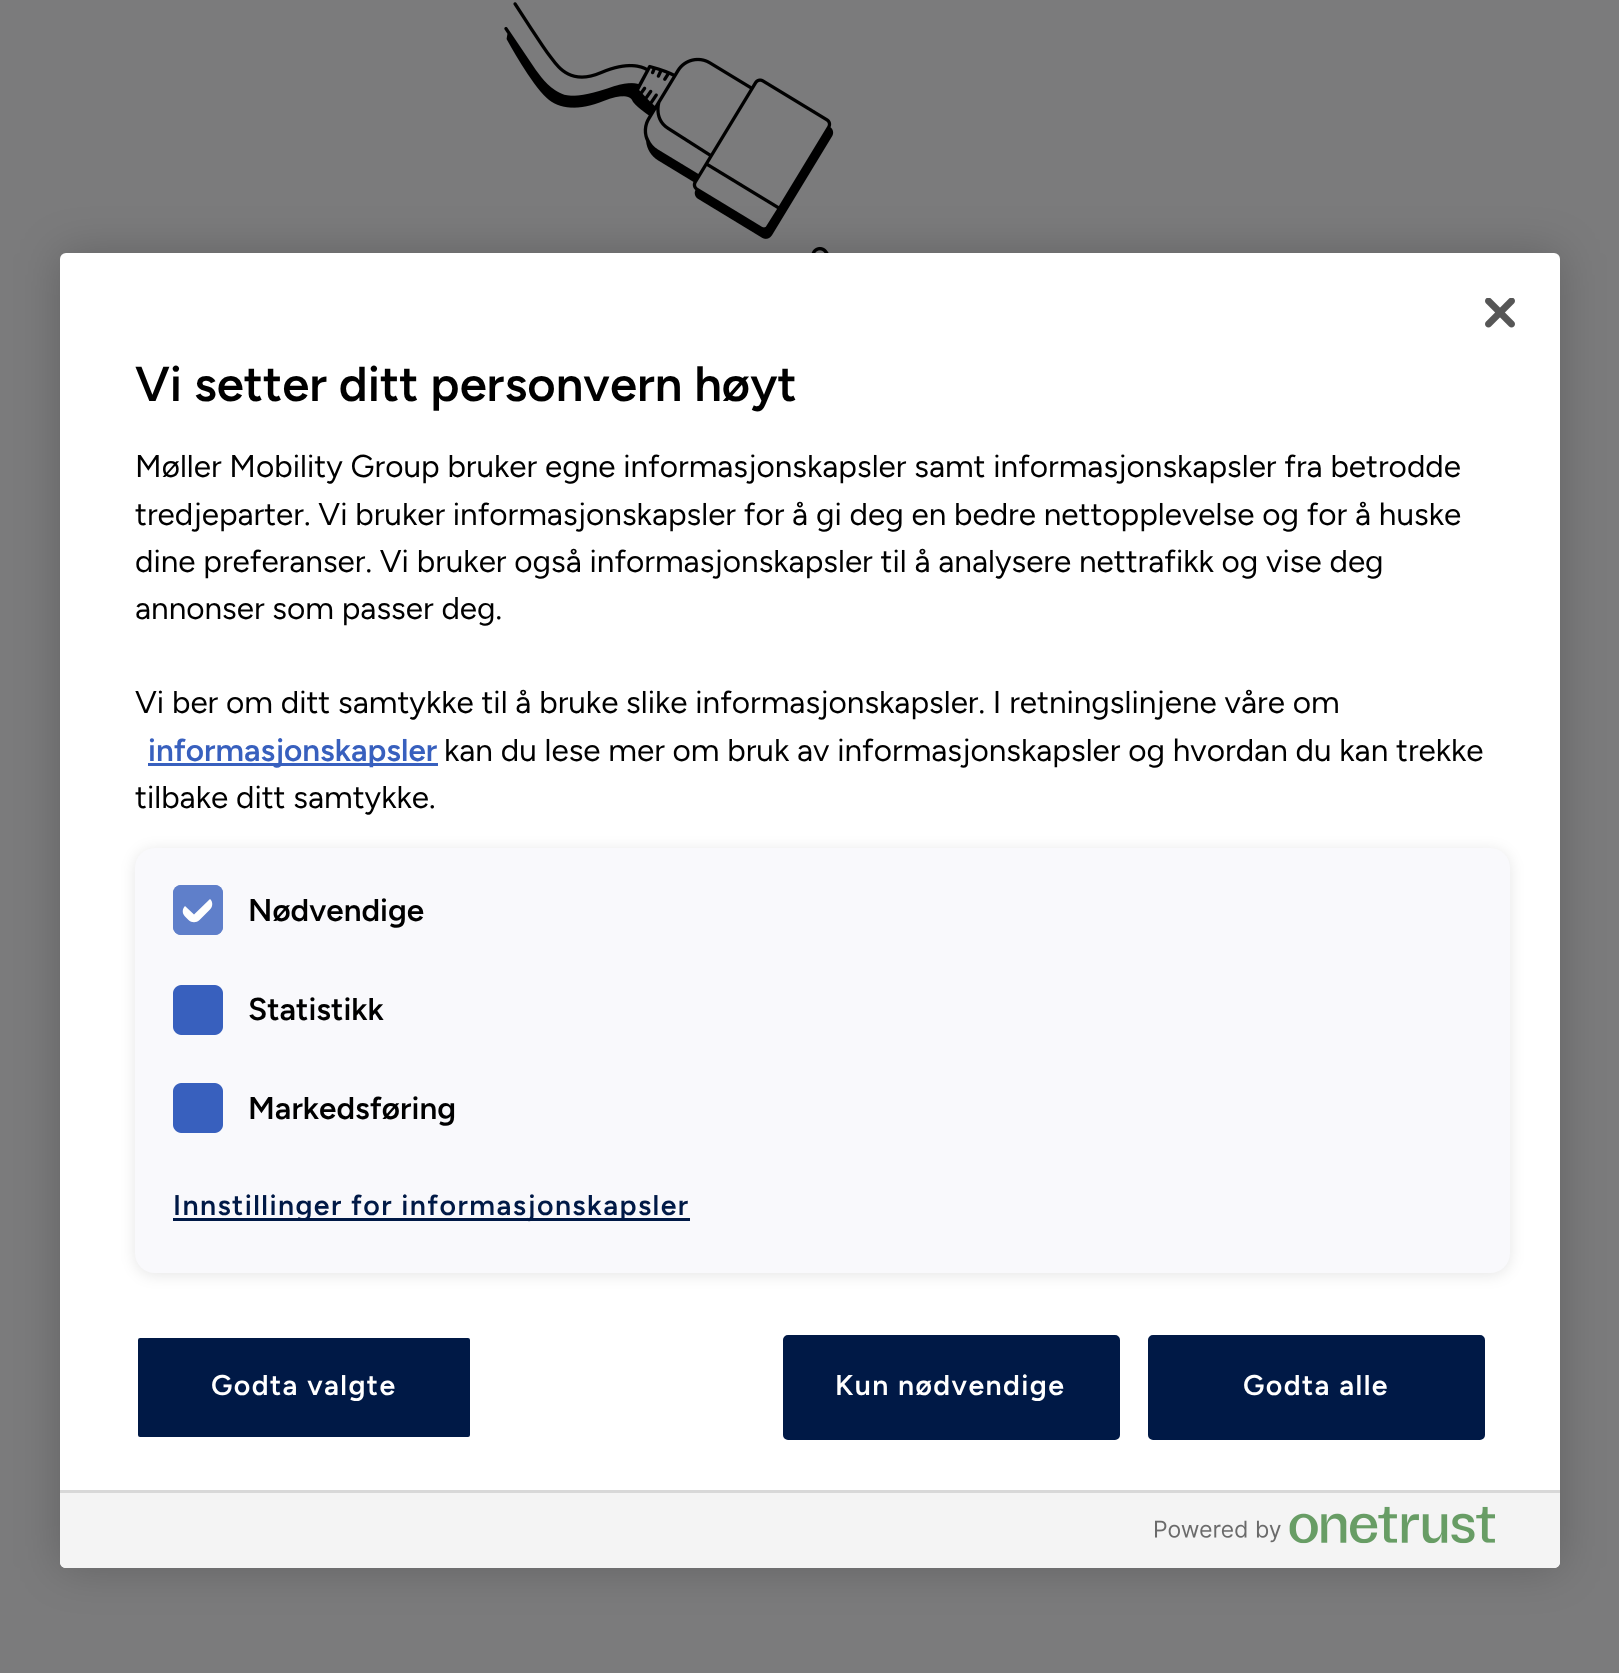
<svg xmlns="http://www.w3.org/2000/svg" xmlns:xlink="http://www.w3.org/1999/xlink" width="1619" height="1673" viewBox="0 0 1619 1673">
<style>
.cls-1{font:600 49px Figtree;fill:#000000}
.cls-2{font:31.5px Figtree;fill:#000000}
.cls-3{font:600 31.5px Figtree;fill:#3860be}
.cls-4{font:600 31.5px Figtree;fill:#000000}
.cls-5{font:600 28.5px Figtree;letter-spacing:1.4px;fill:#001946}
.cls-6{font:600 28.5px Figtree;letter-spacing:1.4px;fill:#ffffff}
</style>
<rect width="100%" height="100%" fill="#7b7b7c"/>
<image xlink:href="image0.png" x="504" y="2" width="330" height="251"/>
<rect fill="#000000" fill-opacity="0.2" filter="blur(22.5px)" x="60" y="253" width="1500" height="1315" rx="6"/>
<rect fill="#ffffff" x="60" y="253" width="1500" height="1315" rx="6"/>
<image xlink:href="image1.png" x="1485" y="298" width="30" height="30"/>
<rect fill="#3860be" x="148" y="763" width="290" height="3"/>
<rect fill="#000000" fill-opacity="0.1" filter="blur(7.5px)" x="135" y="850" width="1375" height="425" rx="20"/>
<rect fill="#f9f9fc" x="135" y="848" width="1375" height="425" rx="20"/>
<rect fill="#5f7fca" x="173" y="885" width="50" height="50" rx="8"/>
<path fill="#5f7fca" d="M181 885H215C219 885 223 889 223 893V927C223 931 219 935 215 935H181C177 935 173 931 173 927V893C173 889 177 885 181 885Z"/>
<path fill="#fefefe" fill-rule="evenodd" d="M185 906L195.5 895C198.5 892.5 203.5 892.5 206.5 895L210 899C213 901.5 213 906.5 210 909.5L199.5 920C196.5 923 191.5 923 188.5 920L185 916.5C182 913.5 182 909 185 906ZM185 906L195.5 895C198.5 892.5 203.5 892.5 206.5 895L210 899L194 914.5Z"/>
<path fill="#3860be" d="M181 985H215C219 985 223 989 223 993V1027C223 1031 219 1035 215 1035H181C177 1035 173 1031 173 1027V993C173 989 177 985 181 985Z"/>
<path fill="#3860be" d="M181 1083H215C219 1083 223 1087 223 1091V1125C223 1129 219 1133 215 1133H181C177 1133 173 1129 173 1125V1091C173 1087 177 1083 181 1083Z"/>
<rect fill="#001946" x="173" y="1218" width="517" height="3"/>
<rect fill="#001946" stroke="#ffffff" stroke-width="3" x="136.5" y="1336.5" width="335" height="102" rx="3.5"/>
<rect fill="#001946" stroke="#001946" stroke-width="3" x="784.5" y="1336.5" width="334" height="102" rx="3.5"/>
<rect fill="#001946" stroke="#001946" stroke-width="3" x="1149.5" y="1336.5" width="334" height="102" rx="3.5"/>
<path fill="#f4f4f4" d="M60 1490H1560V1562C1560 1565.5 1557.5 1568 1554 1568H66C62.5 1568 60 1565.5 60 1562Z"/>
<rect fill="#d8d8d8" x="60" y="1490" width="1500" height="3"/>
<image xlink:href="image2.png" x="1155" y="1506" width="340" height="38"/>
<text class="cls-1" x="135" y="401">Vi setter ditt personvern høyt</text>
<text class="cls-2"><tspan x="135" y="477">Møller Mobility Group bruker egne informasjonskapsler samt informasjonskapsler fra betrodde</tspan><tspan x="135" y="525">tredjeparter. Vi bruker informasjonskapsler for å gi deg en bedre nettopplevelse og for å huske</tspan><tspan x="135" y="572">dine preferanser. Vi bruker også informasjonskapsler til å analysere nettrafikk og vise deg</tspan><tspan x="135" y="619">annonser som passer deg.</tspan></text>
<text class="cls-2" x="135" y="713">Vi ber om ditt samtykke til å bruke slike informasjonskapsler. I retningslinjene våre om</text>
<text class="cls-3" x="148" y="761">informasjonskapsler</text>
<text class="cls-2" x="444" y="761">kan du lese mer om bruk av informasjonskapsler og hvordan du kan trekke</text>
<text class="cls-2" x="135" y="808">tilbake ditt samtykke.</text>
<text class="cls-4" x="248" y="921">Nødvendige</text>
<text class="cls-4" x="248" y="1020">Statistikk</text>
<text class="cls-4" x="248" y="1119">Markedsføring</text>
<text class="cls-5" x="173" y="1215">Innstillinger for informasjonskapsler</text>
<text class="cls-6" x="211" y="1395">Godta valgte</text>
<text class="cls-6" x="835" y="1395">Kun nødvendige</text>
<text class="cls-6" x="1243" y="1395">Godta alle</text>
</svg>
